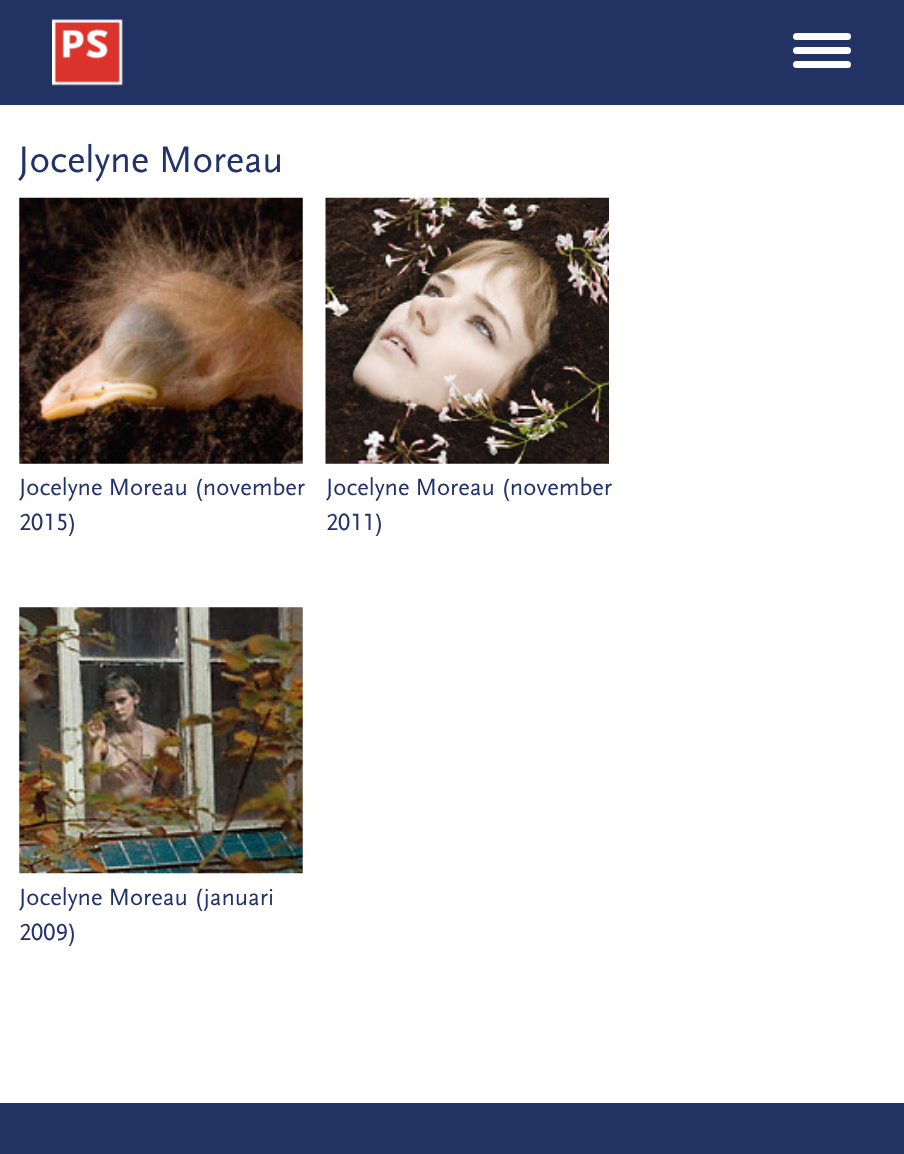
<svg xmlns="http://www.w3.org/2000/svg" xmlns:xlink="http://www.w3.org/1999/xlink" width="904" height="1154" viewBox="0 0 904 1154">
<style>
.cls-1{font:38.5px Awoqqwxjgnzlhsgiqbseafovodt;fill:#22326a}
.cls-2{font:24.5px Awoqqwxjgnzlhsgiqbseafovodt;fill:#22326a}
</style>
<rect width="100%" height="100%" fill="#ffffff"/>
<rect fill="#223262" x="0" y="0" width="904" height="105"/>
<image xlink:href="image0.png" x="52" y="19" width="71" height="67"/>
<rect fill="#ffffff" x="793" y="33" width="58" height="7" rx="3.5"/>
<rect fill="#ffffff" x="793" y="47" width="58" height="7" rx="3.5"/>
<rect fill="#ffffff" x="793" y="61" width="58" height="7" rx="3.5"/>
<image xlink:href="image1.png" x="19" y="197" width="284" height="267"/>
<image xlink:href="image2.png" x="325" y="197" width="284" height="267"/>
<image xlink:href="image3.png" x="19" y="607" width="284" height="267"/>
<rect fill="#223262" x="0" y="1103" width="904" height="51"/>
<text class="cls-1" x="18" y="172">Jocelyne Moreau</text>
<text class="cls-2"><tspan x="19" y="495">Jocelyne Moreau (november</tspan><tspan x="19" y="530">2015)</tspan></text>
<text class="cls-2"><tspan x="326" y="495">Jocelyne Moreau (november</tspan><tspan x="326" y="530">2011)</tspan></text>
<text class="cls-2"><tspan x="19" y="905">Jocelyne Moreau (januari</tspan><tspan x="19" y="940">2009)</tspan></text>
</svg>
